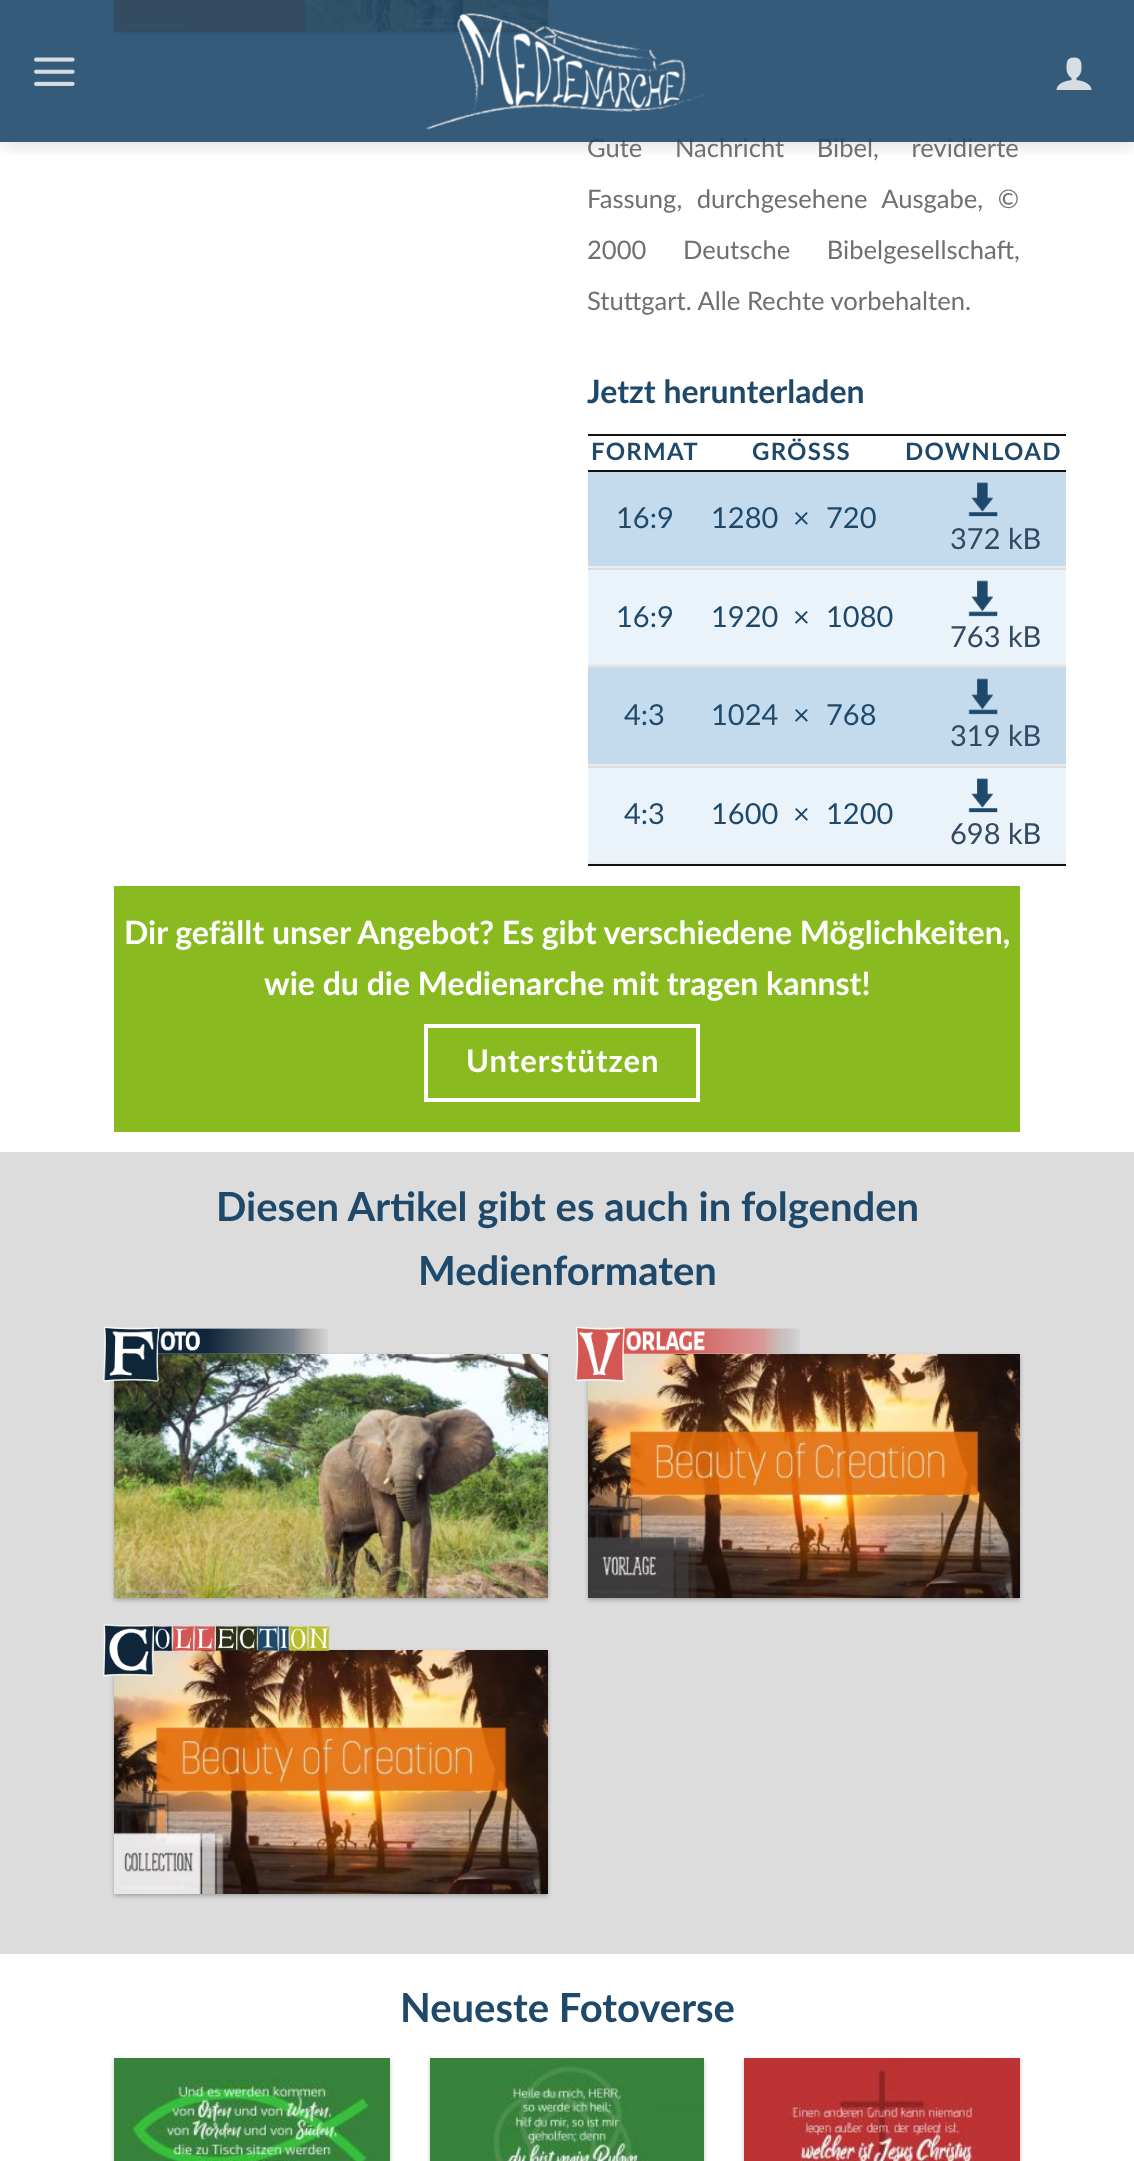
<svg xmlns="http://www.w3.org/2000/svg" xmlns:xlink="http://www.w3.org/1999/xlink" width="1134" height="2161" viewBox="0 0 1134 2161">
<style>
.cls-1{font:25.6px Lato;fill:#707070}
.cls-2{font:bold 32px Lato;fill:#1f496b}
.cls-3{font:bold 24px Lato;letter-spacing:1.25px;fill:#1f496b}
.cls-4{font:29px Lato;fill:#1f496b}
.cls-5{font:29px Lato;fill:#334862}
.cls-6{font:bold 32px Lato;fill:#ffffff}
.cls-7{font:bold 31px Lato;letter-spacing:1px;fill:#ffffff}
.cls-8{font:bold 40px Lato;fill:#1f496b}
</style>
<defs>
<clipPath id="clip1"><rect x="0" y="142" width="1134" height="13"/></clipPath>
</defs>
<rect width="100%" height="100%" fill="#ffffff"/>
<rect fill="#000000" fill-opacity="0.24" filter="blur(2px)" x="114" y="-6" width="434" height="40"/>
<rect fill="#000000" fill-opacity="0.12" filter="blur(3px)" x="118" y="-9" width="426" height="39"/>
<image xlink:href="image3.png" x="114" y="0" width="434" height="32"/>
<g clip-path="url(#clip1)">
<rect fill="#000000" fill-opacity="0.15" filter="blur(10px)" x="2" y="2" width="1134" height="142"/>
</g>
<rect fill="#111111" x="588" y="864" width="478" height="2"/>
<rect fill="#111111" x="588" y="434" width="478" height="2"/>
<rect fill="#111111" x="588" y="470" width="478" height="2"/>
<rect fill="#c4dbee" x="588" y="472" width="478" height="94"/>
<rect fill="#ececec" x="588" y="566" width="478" height="2"/>
<image xlink:href="image4.png" x="968" y="482" width="30" height="35"/>
<rect fill="#ebf3fa" x="588" y="570" width="478" height="94"/>
<rect fill="#dddddd" x="588" y="568" width="478" height="2"/>
<rect fill="#ececec" x="588" y="664" width="478" height="2"/>
<image xlink:href="image5.png" x="968" y="580" width="30" height="37"/>
<rect fill="#c4dbee" x="588" y="668" width="478" height="96"/>
<rect fill="#dddddd" x="588" y="666" width="478" height="2"/>
<rect fill="#ececec" x="588" y="764" width="478" height="2"/>
<image xlink:href="image6.png" x="968" y="678" width="30" height="37"/>
<rect fill="#ebf3fa" x="588" y="768" width="478" height="94"/>
<rect fill="#dddddd" x="588" y="766" width="478" height="2"/>
<rect fill="#ececec" x="588" y="862" width="478" height="2"/>
<image xlink:href="image7.png" x="968" y="778" width="30" height="35"/>
<rect fill="#89ba1f" x="114" y="886" width="906" height="246"/>
<rect fill="none" stroke="#ffffff" stroke-width="4" x="426" y="1026" width="272" height="74"/>
<rect fill="#dcdcdc" x="0" y="1152" width="1134" height="802"/>
<rect fill="#000000" fill-opacity="0.24" filter="blur(2px)" x="114" y="1356" width="434" height="244"/>
<rect fill="#000000" fill-opacity="0.12" filter="blur(3px)" x="118" y="1360" width="426" height="236"/>
<image xlink:href="image9.png" x="114" y="1354" width="434" height="244"/>
<image xlink:href="image8.png" x="103" y="1326" width="225" height="56"/>
<rect fill="#000000" fill-opacity="0.24" filter="blur(2px)" x="588" y="1356" width="432" height="244"/>
<rect fill="#000000" fill-opacity="0.12" filter="blur(3px)" x="592" y="1360" width="424" height="236"/>
<image xlink:href="image11.png" x="588" y="1354" width="432" height="244"/>
<image xlink:href="image10.png" x="575" y="1326" width="225" height="56"/>
<rect fill="#000000" fill-opacity="0.24" filter="blur(2px)" x="114" y="1652" width="434" height="244"/>
<rect fill="#000000" fill-opacity="0.12" filter="blur(3px)" x="118" y="1656" width="426" height="236"/>
<image xlink:href="image13.png" x="114" y="1650" width="434" height="244"/>
<image xlink:href="image12.png" x="103" y="1624" width="227" height="53"/>
<rect fill="#000000" fill-opacity="0.24" filter="blur(2px)" x="114" y="2060" width="276" height="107"/>
<image xlink:href="image14.png" x="114" y="2058" width="276" height="103"/>
<rect fill="#000000" fill-opacity="0.24" filter="blur(2px)" x="430" y="2060" width="274" height="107"/>
<image xlink:href="image15.png" x="430" y="2058" width="274" height="103"/>
<rect fill="#000000" fill-opacity="0.24" filter="blur(2px)" x="744" y="2060" width="276" height="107"/>
<image xlink:href="image16.png" x="744" y="2058" width="276" height="103"/>
<text class="cls-1" x="587" y="157" word-spacing="26">Gute Nachricht Bibel, revidierte</text>
<rect fill="#1f496b" fill-opacity="0.9" x="0" y="0" width="1134" height="142"/>
<image xlink:href="image2.png" x="1056" y="57" width="36" height="33"/>
<image xlink:href="image0.png" x="34" y="57" width="41" height="29"/>
<image xlink:href="image1.png" x="425" y="13" width="280" height="117"/>
<text class="cls-1"><tspan x="587" y="208" word-spacing="8">Fassung, durchgesehene Ausgabe, ©</tspan><tspan x="587" y="259" word-spacing="30">2000 Deutsche Bibelgesellschaft,</tspan><tspan x="587" y="310">Stuttgart. Alle Rechte vorbehalten.</tspan></text>
<text class="cls-2" x="587" y="403">Jetzt herunterladen</text>
<text class="cls-3" x="591" y="460">FORMAT</text>
<text class="cls-3" x="752" y="460">GRÖSSS</text>
<text class="cls-3" x="905" y="460">DOWNLOAD</text>
<text class="cls-4" x="616" y="528">16:9</text>
<text class="cls-4" x="711" y="528">1280</text>
<text class="cls-4" x="793" y="528">×</text>
<text class="cls-4" x="826" y="528">720</text>
<text class="cls-5" x="950" y="549">372 kB</text>
<text class="cls-4" x="616" y="627">16:9</text>
<text class="cls-4" x="711" y="627">1920</text>
<text class="cls-4" x="793" y="627">×</text>
<text class="cls-4" x="826" y="627">1080</text>
<text class="cls-5" x="950" y="647">763 kB</text>
<text class="cls-4" x="624" y="725">4:3</text>
<text class="cls-4" x="711" y="725">1024</text>
<text class="cls-4" x="793" y="725">×</text>
<text class="cls-4" x="826" y="725">768</text>
<text class="cls-5" x="950" y="746">319 kB</text>
<text class="cls-4" x="624" y="824">4:3</text>
<text class="cls-4" x="711" y="824">1600</text>
<text class="cls-4" x="793" y="824">×</text>
<text class="cls-4" x="826" y="824">1200</text>
<text class="cls-5" x="950" y="844">698 kB</text>
<text class="cls-6" x="124" y="944">Dir gefällt unser Angebot? Es gibt verschiedene Möglichkeiten,</text>
<text class="cls-6" x="264" y="995">wie du die Medienarche mit tragen kannst!</text>
<text class="cls-7" x="466" y="1072">Unterstützen</text>
<text class="cls-8" x="216" y="1221">Diesen Artikel gibt es auch in folgenden</text>
<text class="cls-8" x="418" y="1285">Medienformaten</text>
<text class="cls-8" x="400" y="2022">Neueste Fotoverse</text>
</svg>
